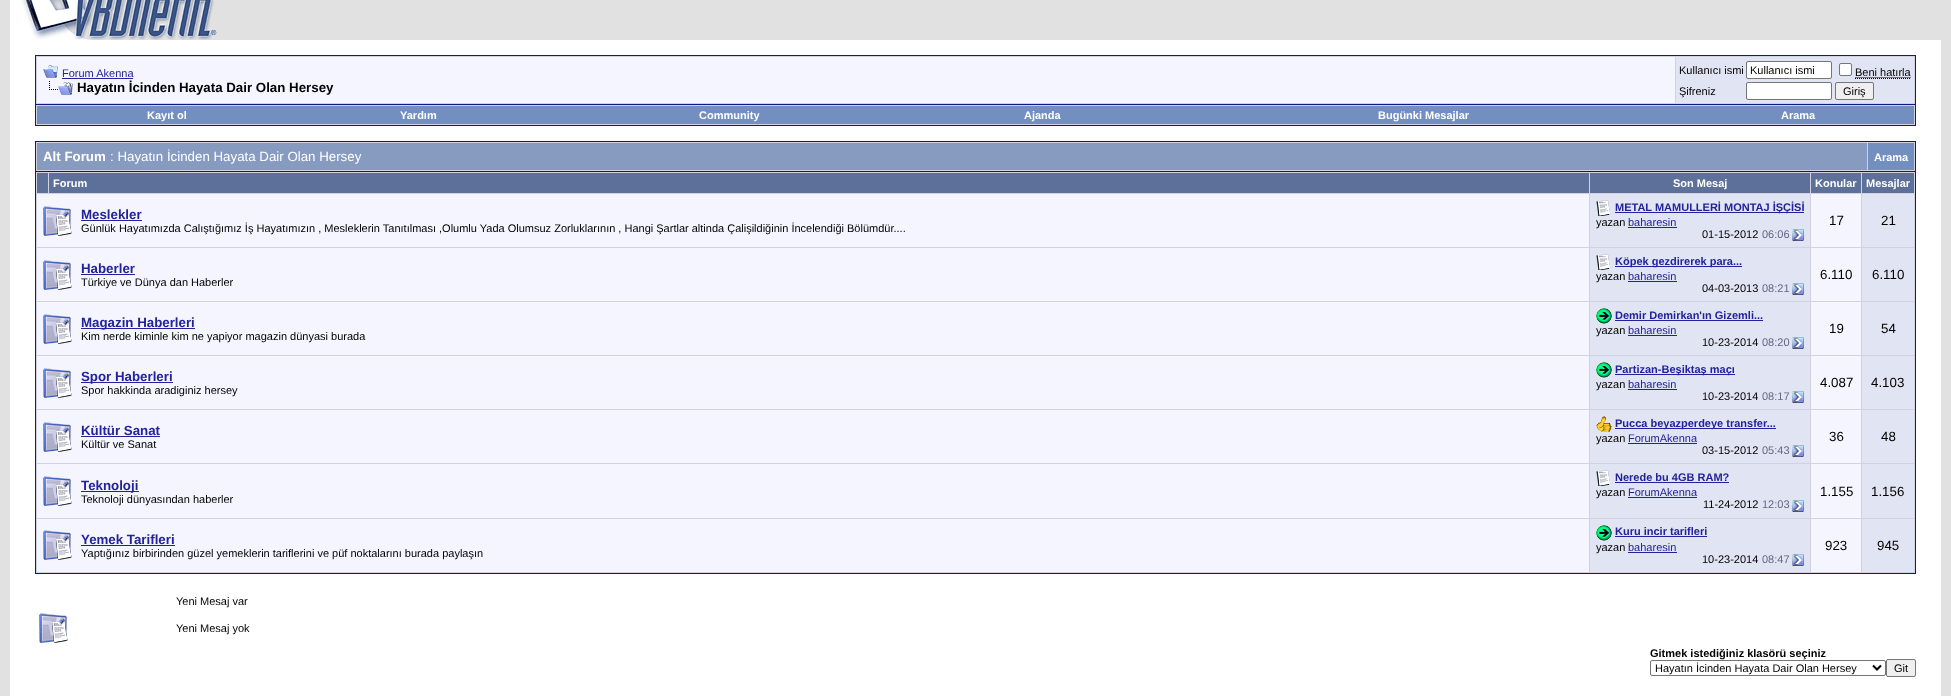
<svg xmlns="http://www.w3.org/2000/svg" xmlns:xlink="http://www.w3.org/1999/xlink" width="1951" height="696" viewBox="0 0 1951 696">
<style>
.cls-1{font:11px Liberation Sans;fill:#22229c}
.cls-2{font:bold 13.3px Liberation Sans;fill:#000000}
.cls-3{font:11px Liberation Sans;fill:#000000}
.cls-4{font:bold 11px Liberation Sans;fill:#ffffff}
.cls-5{font:bold 13.3px Liberation Sans;fill:#ffffff}
.cls-6{font:13.3px Liberation Sans;fill:#ffffff}
.cls-7{font:bold 13.3px Liberation Sans;fill:#22229c}
.cls-8{font:bold 11px Liberation Sans;fill:#22229c}
.cls-9{font:11px Liberation Sans;fill:#666686}
.cls-10{font:13.3px Liberation Sans;fill:#000000}
.cls-11{font:bold 11px Liberation Sans;fill:#000000}
</style>
<rect width="100%" height="100%" fill="#e1e1e2"/>
<image xlink:href="image0.png" x="10" y="0" width="207" height="40"/>
<rect fill="#ffffff" x="10" y="40" width="1931" height="656"/>
<rect fill="#d1d1e1" stroke="#0b198c" x="35.5" y="55.5" width="1880" height="49"/>
<rect fill="#f5f5ff" x="37" y="57" width="1638" height="46"/>
<image xlink:href="image1.png" x="43" y="65" width="15" height="13"/>
<rect fill="#22229c" x="62" y="78" width="71" height="1"/>
<image xlink:href="image2.png" x="49" y="81" width="24" height="14"/>
<rect fill="#e1e4f2" x="1676" y="57" width="238" height="46"/>
<rect fill="#ffffff" stroke="#767676" x="1746.5" y="61.5" width="85" height="17" rx="1.5"/>
<rect fill="#ffffff" stroke="#767676" x="1839.5" y="63.5" width="12" height="12" rx="1.5"/>
<path fill="none" stroke="#000000" stroke-dasharray="1 1" d="M1855 78.5H1911M1855.5 77.5H1911"/>
<rect fill="#ffffff" stroke="#767676" x="1746.5" y="82.5" width="85" height="17" rx="1.5"/>
<rect fill="#efefef" stroke="#767676" x="1835.5" y="82.5" width="38" height="17" rx="1.5"/>
<rect fill="#d1d1e1" x="36" y="105" width="1879" height="20"/>
<rect fill="#0b198c" x="1915" y="105" width="1" height="21"/>
<rect fill="#0b198c" x="35" y="125" width="1881" height="1"/>
<rect fill="#0b198c" x="35" y="105" width="1" height="21"/>
<rect fill="#738fbf" x="37" y="106" width="1877" height="18"/>
<rect fill="#d1d1e1" x="36" y="142" width="1879" height="29"/>
<rect fill="#0b198c" x="35" y="141" width="1881" height="1"/>
<rect fill="#0b198c" x="1915" y="141" width="1" height="30"/>
<rect fill="#0b198c" x="35" y="141" width="1" height="30"/>
<rect fill="#869bbf" x="37" y="143" width="1830" height="27"/>
<rect fill="#738fbf" x="1868" y="143" width="46" height="27"/>
<rect fill="#d1d1e1" stroke="#0b198c" x="35.5" y="171.5" width="1880" height="402"/>
<rect fill="#5c7099" x="37" y="173" width="11" height="20"/>
<rect fill="#5c7099" x="49" y="173" width="1540" height="20"/>
<rect fill="#5c7099" x="1590" y="173" width="220" height="20"/>
<rect fill="#5c7099" x="1811" y="173" width="50" height="20"/>
<rect fill="#5c7099" x="1862" y="173" width="52" height="20"/>
<rect fill="#f5f5ff" x="37" y="194" width="1552" height="53"/>
<image xlink:href="image3.png" x="43" y="206" width="29" height="30"/>
<rect fill="#22229c" x="81" y="220" width="61" height="1"/>
<rect fill="#e1e4f2" x="1590" y="194" width="220" height="53"/>
<image xlink:href="image4.png" x="1596" y="200" width="15" height="16"/>
<rect fill="#22229c" x="1615" y="212" width="189" height="1"/>
<rect fill="#22229c" x="1628" y="227" width="49" height="1"/>
<image xlink:href="image5.png" x="1792" y="229" width="12" height="12"/>
<rect fill="#f5f5ff" x="1811" y="194" width="50" height="53"/>
<rect fill="#e1e4f2" x="1862" y="194" width="52" height="53"/>
<rect fill="#f5f5ff" x="37" y="248" width="1552" height="53"/>
<image xlink:href="image3.png" x="43" y="260" width="29" height="30"/>
<rect fill="#22229c" x="81" y="274" width="54" height="1"/>
<rect fill="#e1e4f2" x="1590" y="248" width="220" height="53"/>
<image xlink:href="image4.png" x="1596" y="254" width="15" height="16"/>
<rect fill="#22229c" x="1615" y="266" width="127" height="1"/>
<rect fill="#22229c" x="1628" y="281" width="49" height="1"/>
<image xlink:href="image5.png" x="1792" y="283" width="12" height="12"/>
<rect fill="#f5f5ff" x="1811" y="248" width="50" height="53"/>
<rect fill="#e1e4f2" x="1862" y="248" width="52" height="53"/>
<rect fill="#f5f5ff" x="37" y="302" width="1552" height="53"/>
<image xlink:href="image3.png" x="43" y="314" width="29" height="30"/>
<rect fill="#22229c" x="81" y="328" width="114" height="1"/>
<rect fill="#e1e4f2" x="1590" y="302" width="220" height="53"/>
<image xlink:href="image6.png" x="1596" y="308" width="16" height="16"/>
<rect fill="#22229c" x="1615" y="320" width="148" height="1"/>
<rect fill="#22229c" x="1628" y="335" width="49" height="1"/>
<image xlink:href="image5.png" x="1792" y="337" width="12" height="12"/>
<rect fill="#f5f5ff" x="1811" y="302" width="50" height="53"/>
<rect fill="#e1e4f2" x="1862" y="302" width="52" height="53"/>
<rect fill="#f5f5ff" x="37" y="356" width="1552" height="53"/>
<image xlink:href="image3.png" x="43" y="368" width="29" height="30"/>
<rect fill="#22229c" x="81" y="382" width="92" height="1"/>
<rect fill="#e1e4f2" x="1590" y="356" width="220" height="53"/>
<image xlink:href="image6.png" x="1596" y="362" width="16" height="16"/>
<rect fill="#22229c" x="1615" y="374" width="120" height="1"/>
<rect fill="#22229c" x="1628" y="389" width="49" height="1"/>
<image xlink:href="image5.png" x="1792" y="391" width="12" height="12"/>
<rect fill="#f5f5ff" x="1811" y="356" width="50" height="53"/>
<rect fill="#e1e4f2" x="1862" y="356" width="52" height="53"/>
<rect fill="#f5f5ff" x="37" y="410" width="1552" height="53"/>
<image xlink:href="image3.png" x="43" y="422" width="29" height="30"/>
<rect fill="#22229c" x="81" y="436" width="79" height="1"/>
<rect fill="#e1e4f2" x="1590" y="410" width="220" height="53"/>
<image xlink:href="image7.png" x="1596" y="416" width="16" height="16"/>
<rect fill="#22229c" x="1615" y="428" width="161" height="1"/>
<rect fill="#22229c" x="1628" y="443" width="69" height="1"/>
<image xlink:href="image5.png" x="1792" y="445" width="12" height="12"/>
<rect fill="#f5f5ff" x="1811" y="410" width="50" height="53"/>
<rect fill="#e1e4f2" x="1862" y="410" width="52" height="53"/>
<rect fill="#f5f5ff" x="37" y="464" width="1552" height="54"/>
<image xlink:href="image3.png" x="43" y="476" width="29" height="30"/>
<rect fill="#22229c" x="81" y="491" width="58" height="1"/>
<rect fill="#e1e4f2" x="1590" y="464" width="220" height="54"/>
<image xlink:href="image4.png" x="1596" y="470" width="15" height="16"/>
<rect fill="#22229c" x="1615" y="482" width="114" height="1"/>
<rect fill="#22229c" x="1628" y="497" width="69" height="1"/>
<image xlink:href="image5.png" x="1792" y="500" width="12" height="12"/>
<rect fill="#f5f5ff" x="1811" y="464" width="50" height="54"/>
<rect fill="#e1e4f2" x="1862" y="464" width="52" height="54"/>
<rect fill="#f5f5ff" x="37" y="519" width="1552" height="53"/>
<image xlink:href="image3.png" x="43" y="530" width="29" height="30"/>
<rect fill="#22229c" x="81" y="545" width="94" height="1"/>
<rect fill="#e1e4f2" x="1590" y="519" width="220" height="53"/>
<image xlink:href="image6.png" x="1596" y="525" width="16" height="16"/>
<rect fill="#22229c" x="1615" y="536" width="92" height="1"/>
<rect fill="#22229c" x="1628" y="552" width="49" height="1"/>
<image xlink:href="image5.png" x="1792" y="554" width="12" height="12"/>
<rect fill="#f5f5ff" x="1811" y="519" width="50" height="53"/>
<rect fill="#e1e4f2" x="1862" y="519" width="52" height="53"/>
<image xlink:href="image8.png" x="39" y="613" width="29" height="30"/>
<rect fill="none" stroke="#767676" x="1650.5" y="660.5" width="235" height="15" rx="1.5"/>
<path fill="none" stroke="#000000" stroke-width="2" d="M1873 665.5L1877 669.5L1881 665.5"/>
<rect fill="#efefef" stroke="#767676" x="1886.5" y="659.5" width="29" height="17" rx="1.5"/>
<text class="cls-1" x="62" y="77">Forum Akenna</text>
<text class="cls-2" x="77" y="92">Hayatın İcinden Hayata Dair Olan Hersey</text>
<text class="cls-3" x="1679" y="74">Kullanıcı ismi</text>
<text class="cls-3" x="1750" y="74">Kullanıcı ismi</text>
<text class="cls-3" x="1855" y="76">Beni hatırla</text>
<text class="cls-3" x="1679" y="95">Şifreniz</text>
<text class="cls-3" x="1843" y="95">Giriş</text>
<text class="cls-4" x="147" y="119">Kayıt ol</text>
<text class="cls-4" x="400" y="119">Yardım</text>
<text class="cls-4" x="699" y="119">Community</text>
<text class="cls-4" x="1024" y="119">Ajanda</text>
<text class="cls-4" x="1378" y="119">Bugünki Mesajlar</text>
<text class="cls-4" x="1781" y="119">Arama</text>
<text class="cls-5" x="43" y="161">Alt Forum</text>
<text class="cls-6" x="110" y="161">: Hayatın İcinden Hayata Dair Olan Hersey</text>
<text class="cls-4" x="1874" y="161">Arama</text>
<text class="cls-4" x="53" y="187">Forum</text>
<text class="cls-4" x="1673" y="187">Son Mesaj</text>
<text class="cls-4" x="1815" y="187">Konular</text>
<text class="cls-4" x="1866" y="187">Mesajlar</text>
<text class="cls-7" x="81" y="219">Meslekler</text>
<text class="cls-3" x="81" y="232">Günlük Hayatımızda Calıştığımız İş Hayatımızın , Mesleklerin Tanıtılması ,Olumlu Yada Olumsuz Zorluklarının , Hangi Şartlar altinda Çalişildiğinin İncelendiği Bölümdür....</text>
<text class="cls-8" x="1615" y="211">METAL MAMULLERİ MONTAJ İŞÇİSİ</text>
<text class="cls-3" x="1596" y="226">yazan</text>
<text class="cls-1" x="1628" y="226">baharesin</text>
<text class="cls-3" x="1702" y="238">01-15-2012</text>
<text class="cls-9" x="1762" y="238">06:06</text>
<text class="cls-10" x="1829" y="225">17</text>
<text class="cls-10" x="1881" y="225">21</text>
<text class="cls-7" x="81" y="273">Haberler</text>
<text class="cls-3" x="81" y="286">Türkiye ve Dünya dan Haberler</text>
<text class="cls-8" x="1615" y="265">Köpek gezdirerek para...</text>
<text class="cls-3" x="1596" y="280">yazan</text>
<text class="cls-1" x="1628" y="280">baharesin</text>
<text class="cls-3" x="1702" y="292">04-03-2013</text>
<text class="cls-9" x="1762" y="292">08:21</text>
<text class="cls-10" x="1820" y="279">6.110</text>
<text class="cls-10" x="1872" y="279">6.110</text>
<text class="cls-7" x="81" y="327">Magazin Haberleri</text>
<text class="cls-3" x="81" y="340">Kim nerde kiminle kim ne yapiyor magazin dünyasi burada</text>
<text class="cls-8" x="1615" y="319">Demir Demirkan'ın Gizemli...</text>
<text class="cls-3" x="1596" y="334">yazan</text>
<text class="cls-1" x="1628" y="334">baharesin</text>
<text class="cls-3" x="1702" y="346">10-23-2014</text>
<text class="cls-9" x="1762" y="346">08:20</text>
<text class="cls-10" x="1829" y="333">19</text>
<text class="cls-10" x="1881" y="333">54</text>
<text class="cls-7" x="81" y="381">Spor Haberleri</text>
<text class="cls-3" x="81" y="394">Spor hakkinda aradiginiz hersey</text>
<text class="cls-8" x="1615" y="373">Partizan-Beşiktaş maçı</text>
<text class="cls-3" x="1596" y="388">yazan</text>
<text class="cls-1" x="1628" y="388">baharesin</text>
<text class="cls-3" x="1702" y="400">10-23-2014</text>
<text class="cls-9" x="1762" y="400">08:17</text>
<text class="cls-10" x="1820" y="387">4.087</text>
<text class="cls-10" x="1871" y="387">4.103</text>
<text class="cls-7" x="81" y="435">Kültür Sanat</text>
<text class="cls-3" x="81" y="448">Kültür ve Sanat</text>
<text class="cls-8" x="1615" y="427">Pucca beyazperdeye transfer...</text>
<text class="cls-3" x="1596" y="442">yazan</text>
<text class="cls-1" x="1628" y="442">ForumAkenna</text>
<text class="cls-3" x="1702" y="454">03-15-2012</text>
<text class="cls-9" x="1762" y="454">05:43</text>
<text class="cls-10" x="1829" y="441">36</text>
<text class="cls-10" x="1881" y="441">48</text>
<text class="cls-7" x="81" y="490">Teknoloji</text>
<text class="cls-3" x="81" y="503">Teknoloji dünyasından haberler</text>
<text class="cls-8" x="1615" y="481">Nerede bu 4GB RAM?</text>
<text class="cls-3" x="1596" y="496">yazan</text>
<text class="cls-1" x="1628" y="496">ForumAkenna</text>
<text class="cls-3" x="1703" y="508">11-24-2012</text>
<text class="cls-9" x="1762" y="508">12:03</text>
<text class="cls-10" x="1820" y="496">1.155</text>
<text class="cls-10" x="1871" y="496">1.156</text>
<text class="cls-7" x="81" y="544">Yemek Tarifleri</text>
<text class="cls-3" x="81" y="557">Yaptığınız birbirinden güzel yemeklerin tariflerini ve püf noktalarını burada paylaşın</text>
<text class="cls-8" x="1615" y="535">Kuru incir tarifleri</text>
<text class="cls-3" x="1596" y="551">yazan</text>
<text class="cls-1" x="1628" y="551">baharesin</text>
<text class="cls-3" x="1702" y="563">10-23-2014</text>
<text class="cls-9" x="1762" y="563">08:47</text>
<text class="cls-10" x="1825" y="550">923</text>
<text class="cls-10" x="1877" y="550">945</text>
<text class="cls-3" x="176" y="605">Yeni Mesaj var</text>
<text class="cls-3" x="176" y="632">Yeni Mesaj yok</text>
<text class="cls-11" x="1650" y="657">Gitmek istediğiniz klasörü seçiniz</text>
<text class="cls-3" x="1655" y="672">Hayatın İcinden Hayata Dair Olan Hersey</text>
<text class="cls-3" x="1894" y="672">Git</text>
</svg>
